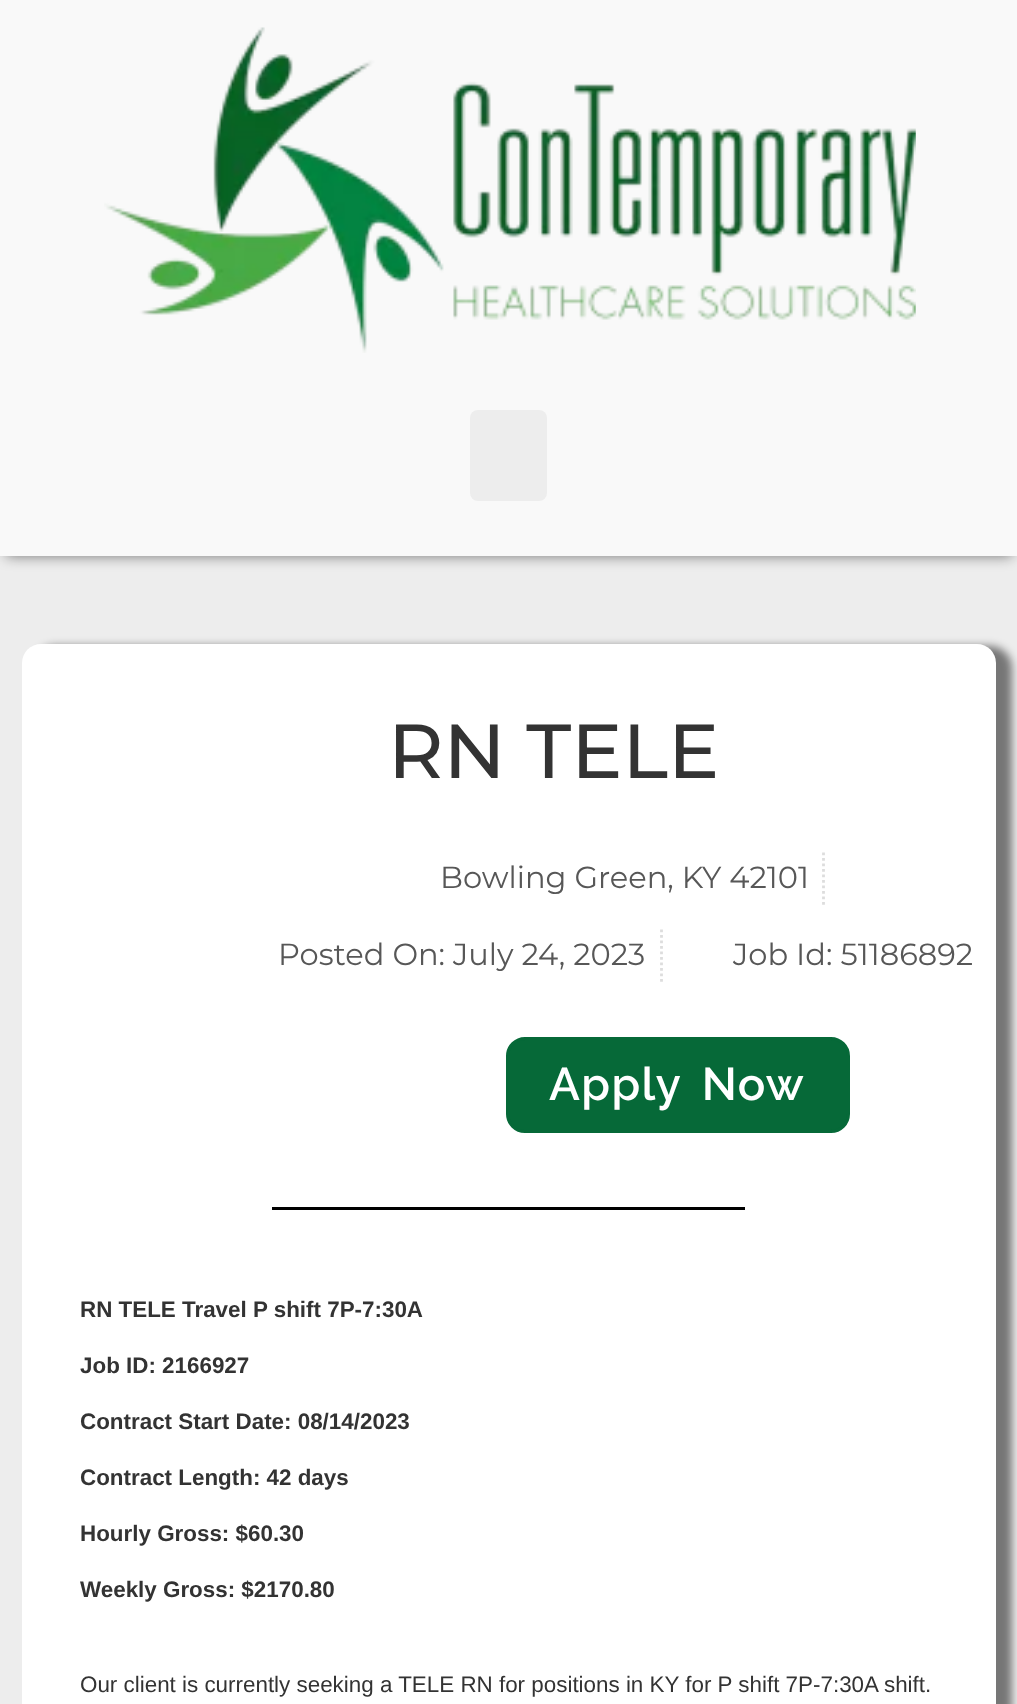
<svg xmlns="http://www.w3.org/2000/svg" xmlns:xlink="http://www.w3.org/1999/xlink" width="1017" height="1704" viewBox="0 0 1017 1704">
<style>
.cls-1{font:500 76.5px Montserrat;fill:#333333}
.cls-2{font:30.5px Montserrat;fill:#575757}
.cls-3{font:600 45.75px Raleway;letter-spacing:1.4px;fill:#ffffff}
.cls-4{font:bold 22.4px Liberation Sans;fill:#333333}
.cls-5{font:22.4px Liberation Sans;fill:#333333}
</style>
<rect width="100%" height="100%" fill="#ededed"/>
<rect fill="#000000" fill-opacity="0.5" filter="blur(7px)" x="6" y="11" width="1006" height="545"/>
<rect fill="#f9f9f9" x="0" y="0" width="1017" height="556"/>
<image xlink:href="image0.png" x="104" y="27" width="812" height="326"/>
<rect fill="#ededed" x="470" y="410" width="77" height="91" rx="8"/>
<rect fill="#000000" fill-opacity="0.5" filter="blur(4px)" x="33" y="646" width="979" height="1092" rx="22"/>
<rect fill="#ffffff" x="22" y="644" width="974" height="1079" rx="19"/>
<path fill="none" stroke="#dddddd" stroke-width="2.8" stroke-dasharray="2.75 2.75" d="M823.5 852.5V907.5"/>
<path fill="none" stroke="#dddddd" stroke-width="2.8" stroke-dasharray="2.75 2.75" d="M661.5 929.5V982"/>
<rect fill="#066938" stroke="#066938" stroke-width="3" x="507.5" y="1038.5" width="341" height="93" rx="17.5"/>
<rect fill="#000000" x="272" y="1207" width="473" height="3"/>
<text class="cls-1" x="388" y="778">RN TELE</text>
<text class="cls-2" x="440" y="888">Bowling Green, KY 42101</text>
<text class="cls-2" x="278" y="965">Posted On: July 24, 2023</text>
<text class="cls-2" x="733" y="965">Job Id: 51186892</text>
<text class="cls-3" x="549" y="1100" word-spacing="8">Apply Now</text>
<text class="cls-4" x="80" y="1317">RN TELE Travel P shift 7P-7:30A</text>
<text class="cls-4" x="80" y="1373">Job ID: 2166927</text>
<text class="cls-4" x="80" y="1429">Contract Start Date: 08/14/2023</text>
<text class="cls-4" x="80" y="1485">Contract Length: 42 days</text>
<text class="cls-4" x="80" y="1541">Hourly Gross: $60.30</text>
<text class="cls-4" x="80" y="1597">Weekly Gross: $2170.80</text>
<text class="cls-5" x="80" y="1692">Our client is currently seeking a TELE RN for positions in KY for P shift 7P-7:30A shift.</text>
</svg>
